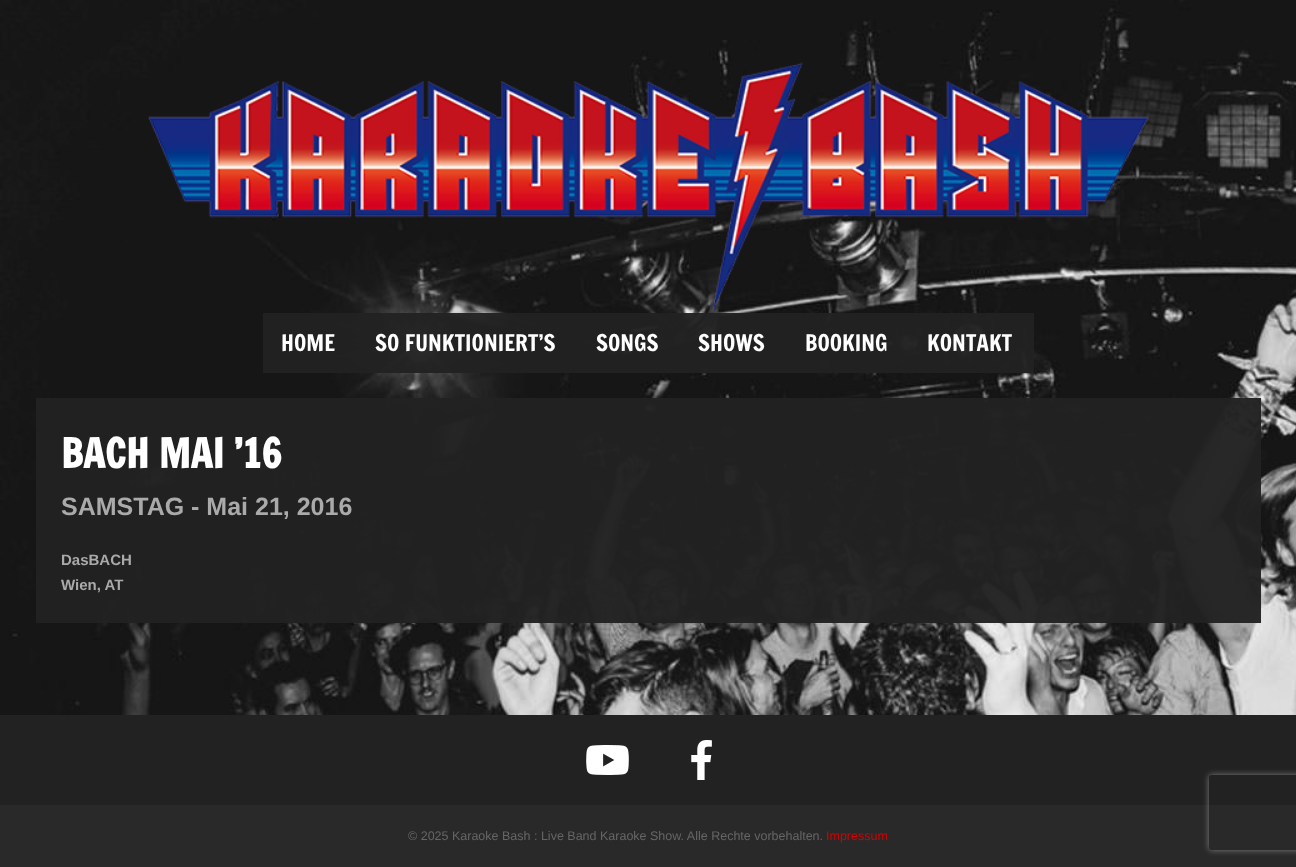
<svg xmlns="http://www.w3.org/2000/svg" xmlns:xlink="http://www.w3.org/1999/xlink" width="1296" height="867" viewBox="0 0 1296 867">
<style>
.cls-1{font:22.5px Francois One;fill:#ffffff}
.cls-2{font:bold 40px Francois One;fill:#ffffff}
.cls-3{font:bold 25px Liberation Sans;fill:#aaaaaa}
.cls-4{font:bold 15px Liberation Sans;fill:#aaaaaa}
.cls-5{font:12.5px Liberation Sans;fill:#666666}
.cls-6{font:12.5px Liberation Sans;fill:#ce0404}
</style>
<defs>
<clipPath id="clip1"><path d="M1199 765H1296V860H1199ZM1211.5 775H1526.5C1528 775 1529 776 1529 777.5V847.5C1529 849 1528 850 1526.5 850H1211.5C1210 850 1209 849 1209 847.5V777.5C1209 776 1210 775 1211.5 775Z" clip-rule="evenodd"/></clipPath>
</defs>
<rect width="100%" height="100%" fill="#ffffff"/>
<image xlink:href="image0.png" x="0" y="0" width="1296" height="715"/>
<image xlink:href="image1.png" x="148" y="62" width="1001" height="251"/>
<rect fill="#222222" fill-opacity="0.97" x="263" y="313" width="771" height="60"/>
<rect fill="#222222" fill-opacity="0.97" x="36" y="398" width="1225" height="225"/>
<rect fill="#222222" x="0" y="715" width="1296" height="90"/>
<image xlink:href="image2.png" x="586" y="745" width="43" height="30"/>
<image xlink:href="image3.png" x="691" y="740" width="21" height="40"/>
<rect fill="#292929" x="0" y="805" width="1296" height="62"/>
<g clip-path="url(#clip1)">
<rect fill="#808080" filter="blur(3px)" x="1209" y="775" width="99" height="75" rx="2.5"/>
</g>
<text class="cls-1" x="281" y="351">HOME</text>
<text class="cls-1" x="375" y="351">SO FUNKTIONIERT’S</text>
<text class="cls-1" x="596" y="351">SONGS</text>
<text class="cls-1" x="698" y="351">SHOWS</text>
<text class="cls-1" x="805" y="351">BOOKING</text>
<text class="cls-1" x="927" y="351">KONTAKT</text>
<text class="cls-2" x="61" y="468">BACH MAI ’16</text>
<text class="cls-3" x="61" y="515">SAMSTAG - Mai 21, 2016</text>
<text class="cls-4"><tspan x="61" y="565">DasBACH</tspan><tspan x="61" y="590">Wien, AT</tspan></text>
<text class="cls-5" x="408" y="840">© 2025 Karaoke Bash : Live Band Karaoke Show. Alle Rechte vorbehalten.</text>
<text class="cls-6" x="826" y="840">Impressum</text>
</svg>
